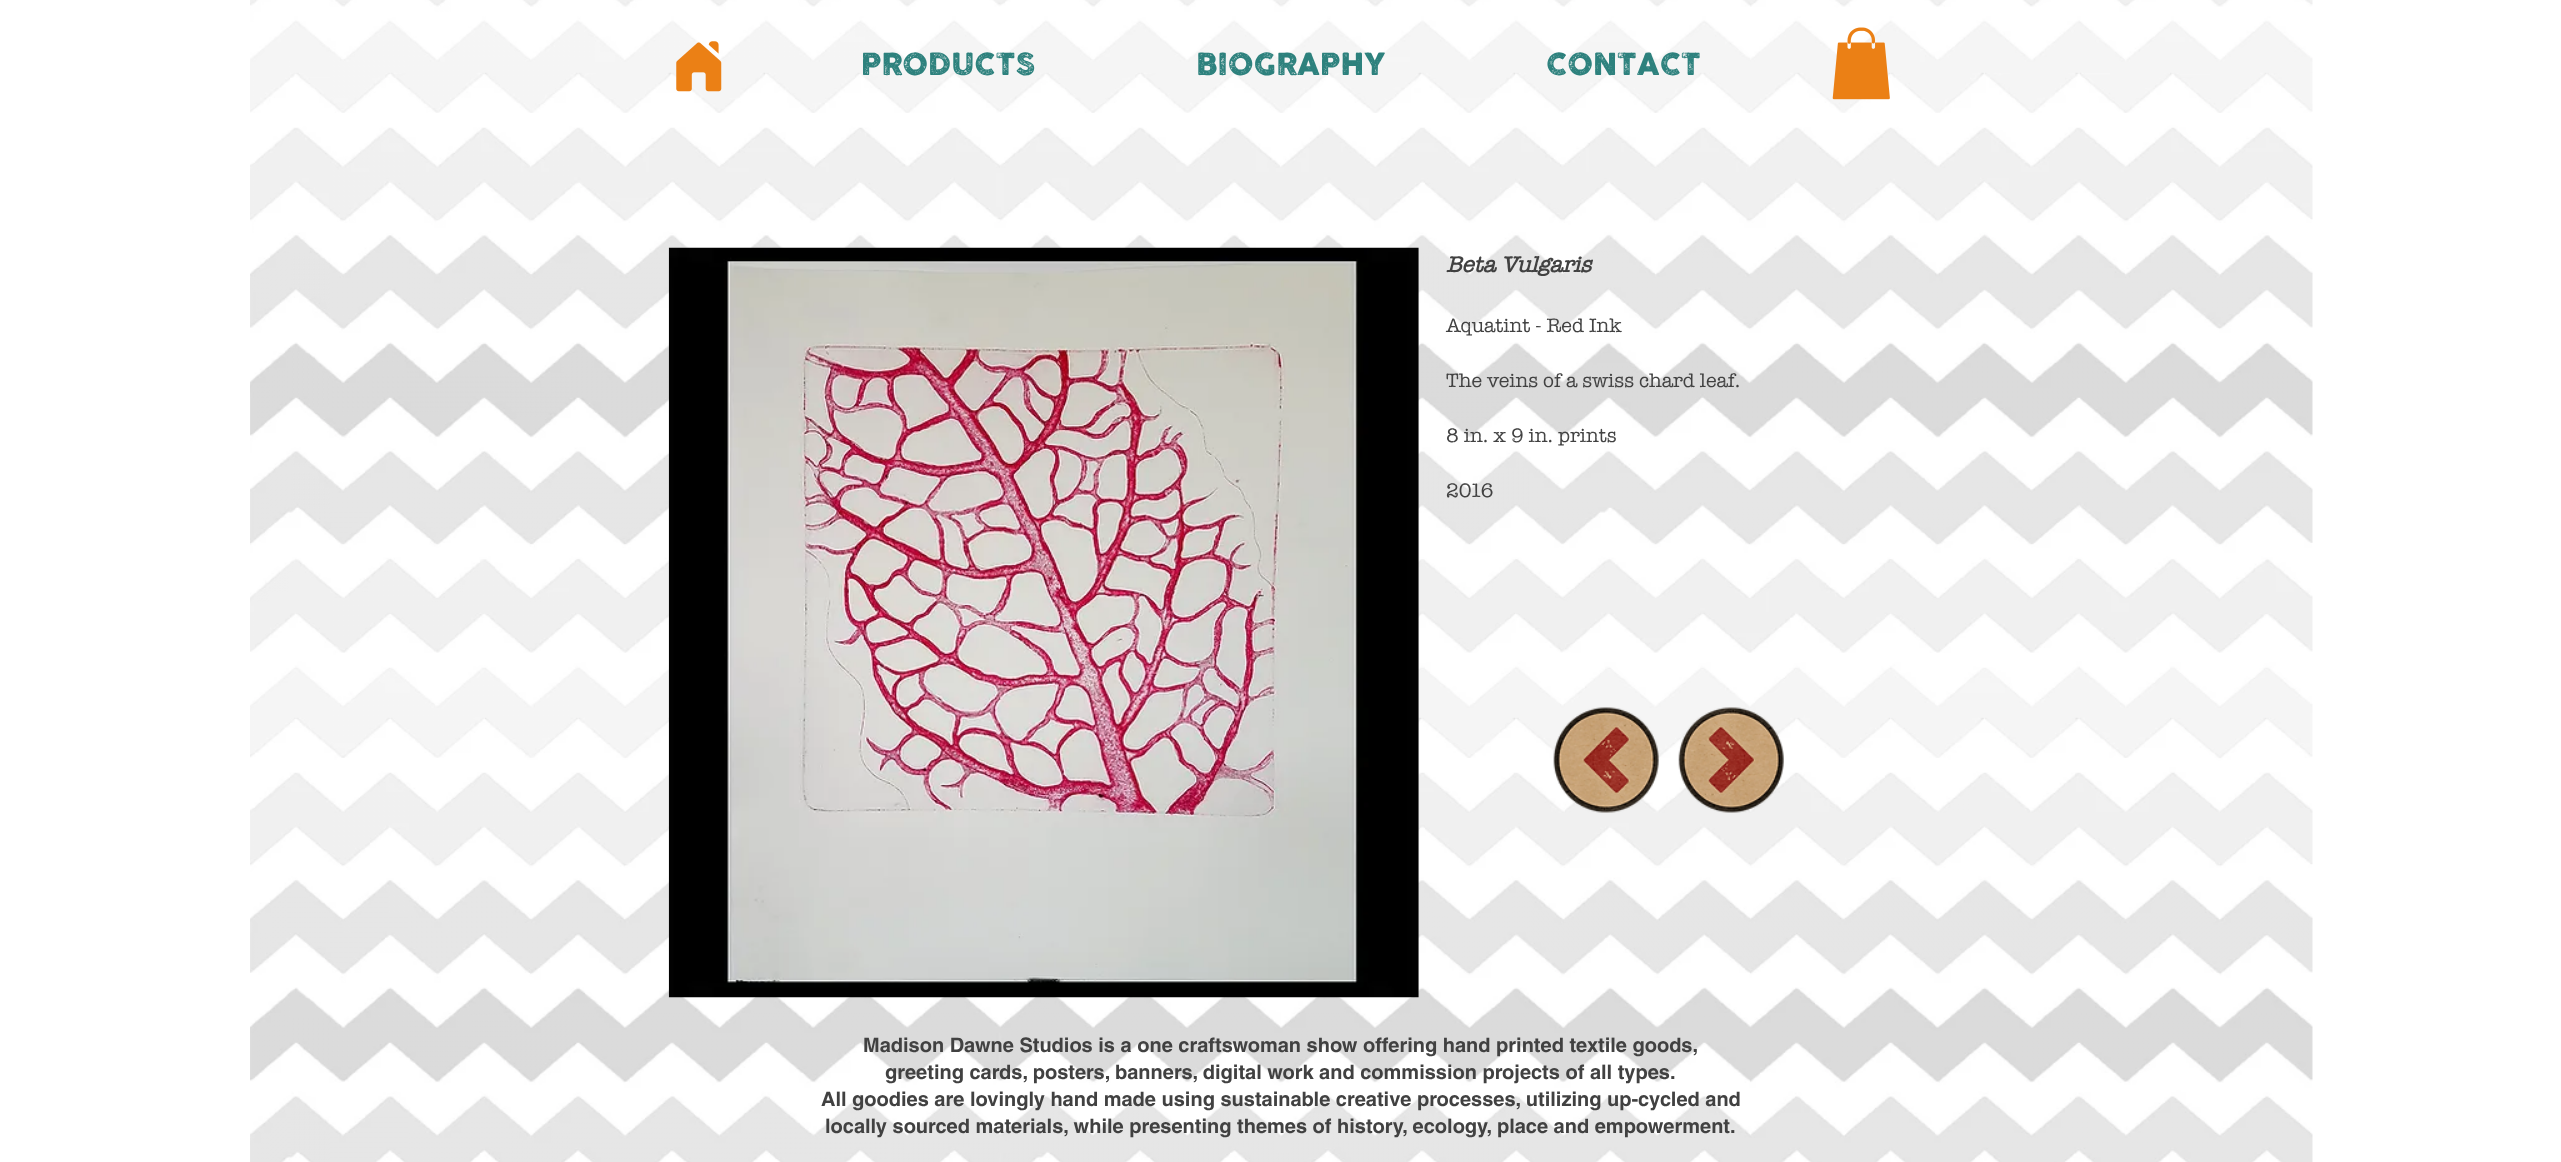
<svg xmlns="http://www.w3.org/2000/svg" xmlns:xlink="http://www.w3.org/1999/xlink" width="2561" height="1162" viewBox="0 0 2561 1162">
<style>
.cls-1{font:30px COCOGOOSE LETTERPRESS;fill:#2d817d}
.cls-2{font:italic bold 22.5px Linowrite;fill:#414141}
.cls-3{font:20px Linowrite;fill:#414141}
.cls-4{font:bold 20px helvetica;fill:#414141}
</style>
<rect width="100%" height="100%" fill="#ffffff"/>
<image xlink:href="image0.png" x="250" y="0" width="2063" height="1162"/>
<image xlink:href="image1.png" x="676" y="41" width="46" height="51"/>
<image xlink:href="image2.png" x="1832" y="27" width="58" height="73"/>
<image xlink:href="image3.png" x="668" y="247" width="751" height="751"/>
<image xlink:href="image4.png" x="1553" y="707" width="106" height="106"/>
<image xlink:href="image5.png" x="1678" y="707" width="106" height="106"/>
<text class="cls-1" x="861" y="75">PRODUCTS</text>
<text class="cls-1" x="1196" y="75">BIOGRAPHY</text>
<text class="cls-1" x="1546" y="75">CONTACT</text>
<text class="cls-2" x="1446" y="272">Beta Vulgaris</text>
<text class="cls-3" x="1446" y="332">Aquatint - Red Ink</text>
<text class="cls-3" x="1446" y="387">The veins of a swiss chard leaf.</text>
<text class="cls-3" x="1446" y="442">8 in. x 9 in. prints</text>
<text class="cls-3" x="1446" y="497">2016</text>
<text class="cls-4" x="863" y="1052">Madison Dawne Studios is a one craftswoman show offering hand printed textile goods,</text>
<text class="cls-4" x="885" y="1079">greeting cards, posters, banners, digital work and commission projects of all types.</text>
<text class="cls-4" x="821" y="1106">All goodies are lovingly hand made using sustainable creative processes, utilizing up-cycled and</text>
<text class="cls-4" x="825" y="1133">locally sourced materials, while presenting themes of history, ecology, place and empowerment.</text>
</svg>
